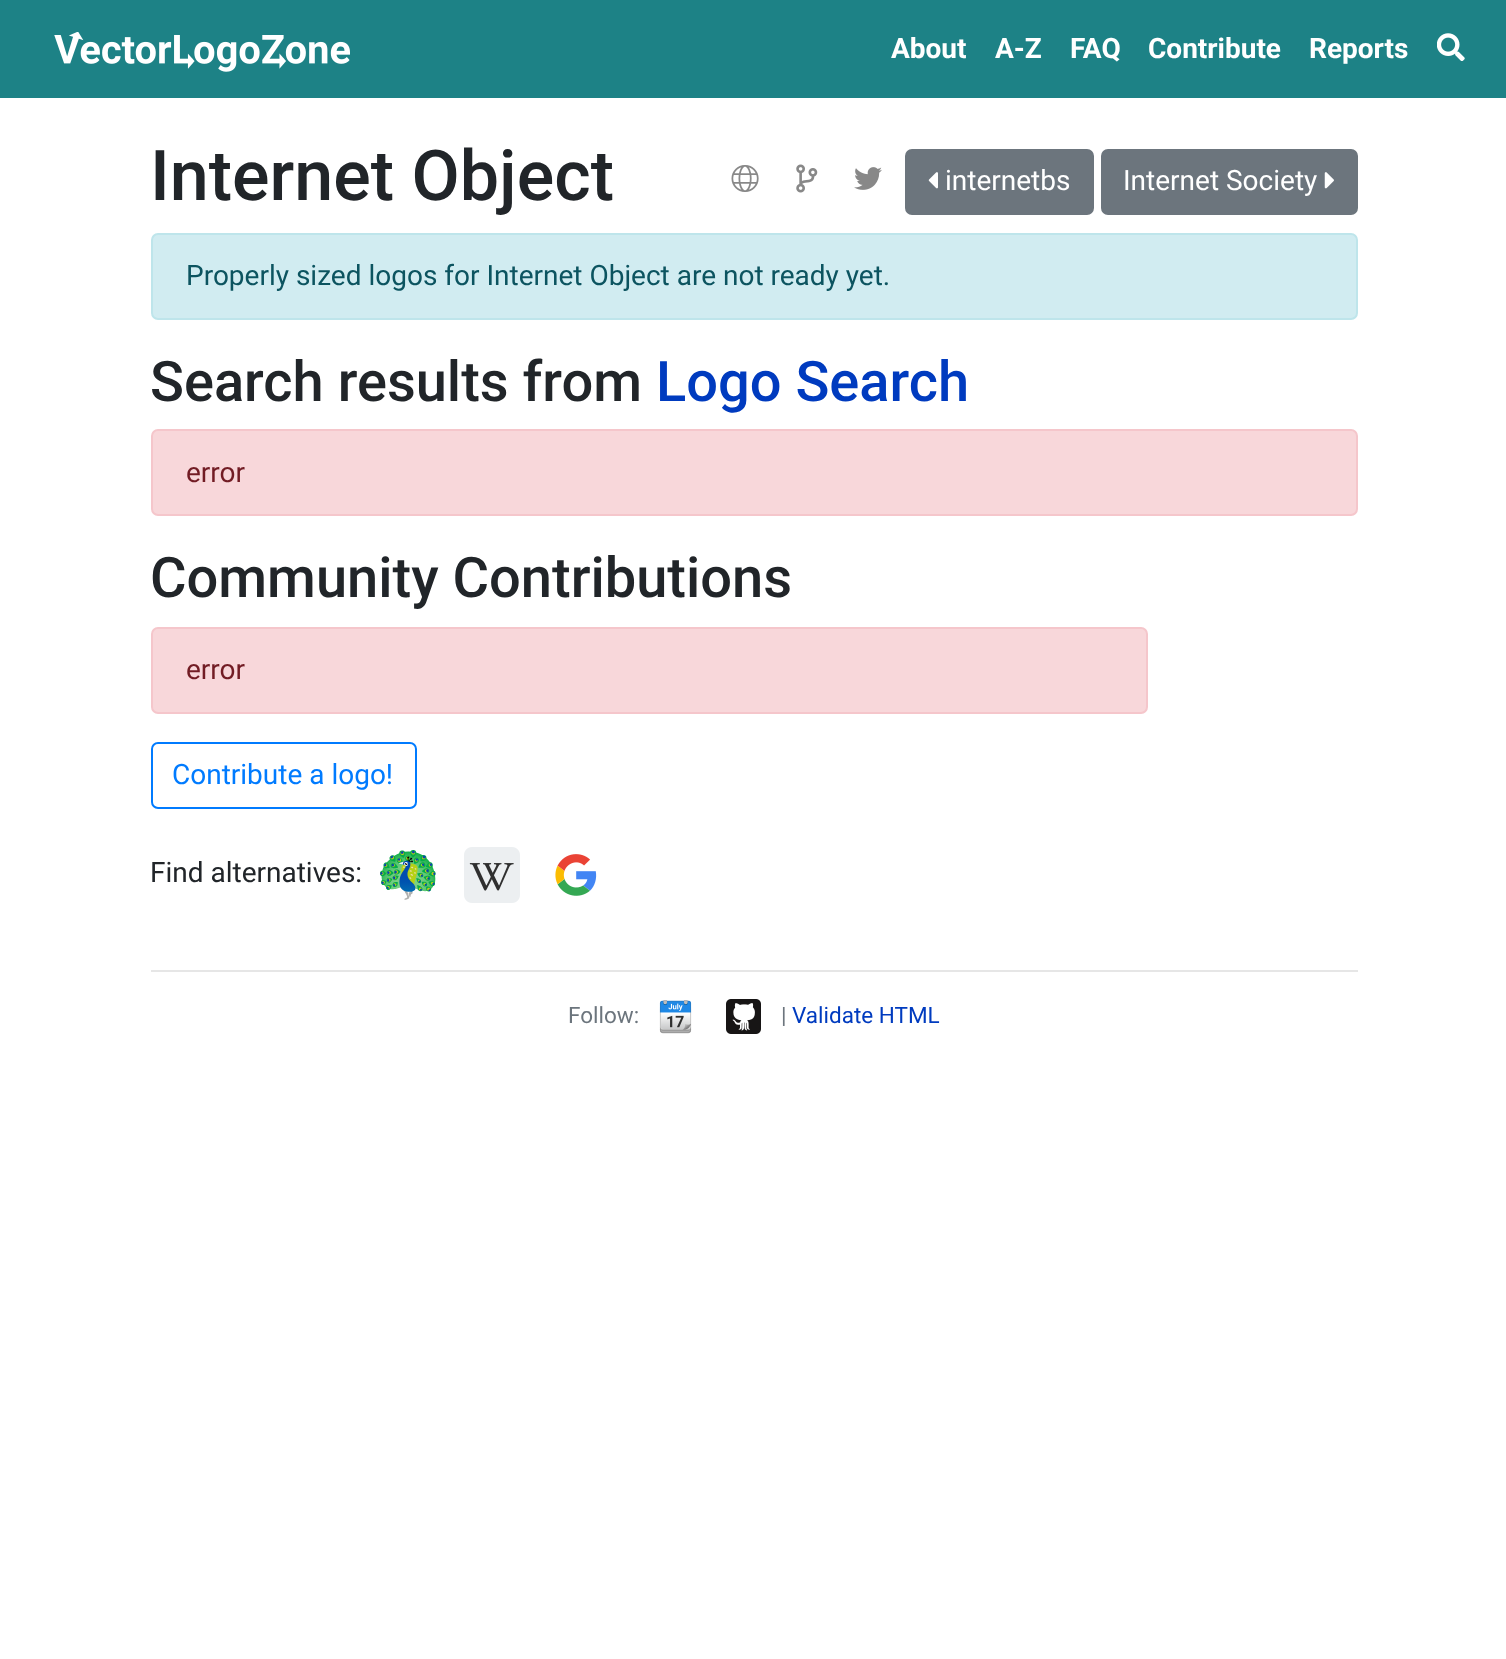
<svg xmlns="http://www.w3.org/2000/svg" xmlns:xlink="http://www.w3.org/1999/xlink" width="1506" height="1659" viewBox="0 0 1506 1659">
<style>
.cls-1{font:bold 28px Roboto;fill:#ffffff}
.cls-2{font:500 70px Roboto;fill:#212529}
.cls-3{font:28px Roboto;fill:#ffffff}
.cls-4{font:28px Roboto;fill:#0c5460}
.cls-5{font:500 56px Roboto;fill:#212529}
.cls-6{font:500 56px Roboto;fill:#003bbf}
.cls-7{font:28px Roboto;fill:#721c24}
.cls-8{font:28px Roboto;fill:#007bff}
.cls-9{font:28px Roboto;fill:#212529}
.cls-10{font:22.5px Roboto;fill:#6c757d}
.cls-11{font:22.5px Roboto;fill:#003bbf}
</style>
<rect width="100%" height="100%" fill="#ffffff"/>
<rect fill="#1d8286" x="0" y="0" width="1506" height="98"/>
<image xlink:href="image0.png" x="54" y="32" width="296" height="40"/>
<image xlink:href="image1.png" x="1437" y="33" width="28" height="28"/>
<image xlink:href="image2.png" x="731" y="165" width="28" height="27"/>
<image xlink:href="image3.png" x="796" y="164" width="22" height="29"/>
<image xlink:href="image4.png" x="854" y="167" width="28" height="23"/>
<rect fill="#6c757d" stroke="#6c757d" stroke-width="2" x="906" y="150" width="187" height="64" rx="6"/>
<image xlink:href="image5.png" x="928" y="172" width="10" height="17"/>
<rect fill="#6c757d" stroke="#6c757d" stroke-width="2" x="1102" y="150" width="255" height="64" rx="6"/>
<image xlink:href="image6.png" x="1324" y="172" width="10" height="17"/>
<rect fill="#d1ecf1" stroke="#bee5eb" stroke-width="2" x="152" y="234" width="1205" height="85" rx="6"/>
<rect fill="#f8d7da" stroke="#f5c6cb" stroke-width="2" x="152" y="430" width="1205" height="85" rx="6"/>
<rect fill="#f8d7da" stroke="#f5c6cb" stroke-width="2" x="152" y="628" width="995" height="85" rx="6"/>
<rect fill="none" stroke="#007bff" stroke-width="2" x="152" y="743" width="264" height="65" rx="6"/>
<image xlink:href="image7.png" x="380" y="850" width="56" height="50"/>
<image xlink:href="image8.png" x="464" y="847" width="56" height="56"/>
<image xlink:href="image9.png" x="555" y="854" width="42" height="42"/>
<rect fill="#e6e6e6" x="151" y="970" width="1207" height="2"/>
<image xlink:href="image10.png" x="659" y="1000" width="33" height="34"/>
<image xlink:href="image11.png" x="726" y="999" width="35" height="35"/>
<text class="cls-1" x="891" y="58">About</text>
<text class="cls-1" x="995" y="58">A‑Z</text>
<text class="cls-1" x="1070" y="58">FAQ</text>
<text class="cls-1" x="1148" y="58">Contribute</text>
<text class="cls-1" x="1309" y="58">Reports</text>
<text class="cls-2" x="150" y="200">Internet Object</text>
<text class="cls-3" x="945" y="190">internetbs</text>
<text class="cls-3" x="1123" y="190">Internet Society</text>
<text class="cls-4" x="186" y="285">Properly sized logos for Internet Object are not ready yet.</text>
<text class="cls-5" x="150" y="401">Search results from</text>
<text class="cls-6" x="656" y="401">Logo Search</text>
<text class="cls-7" x="186" y="482">error</text>
<text class="cls-5" x="150" y="597">Community Contributions</text>
<text class="cls-7" x="186" y="679">error</text>
<text class="cls-8" x="172" y="784">Contribute a logo!</text>
<text class="cls-9" x="150" y="882">Find alternatives:</text>
<text class="cls-10" x="568" y="1023">Follow:</text>
<text class="cls-10" x="781" y="1023">|</text>
<text class="cls-11" x="792" y="1023">Validate HTML</text>
</svg>
